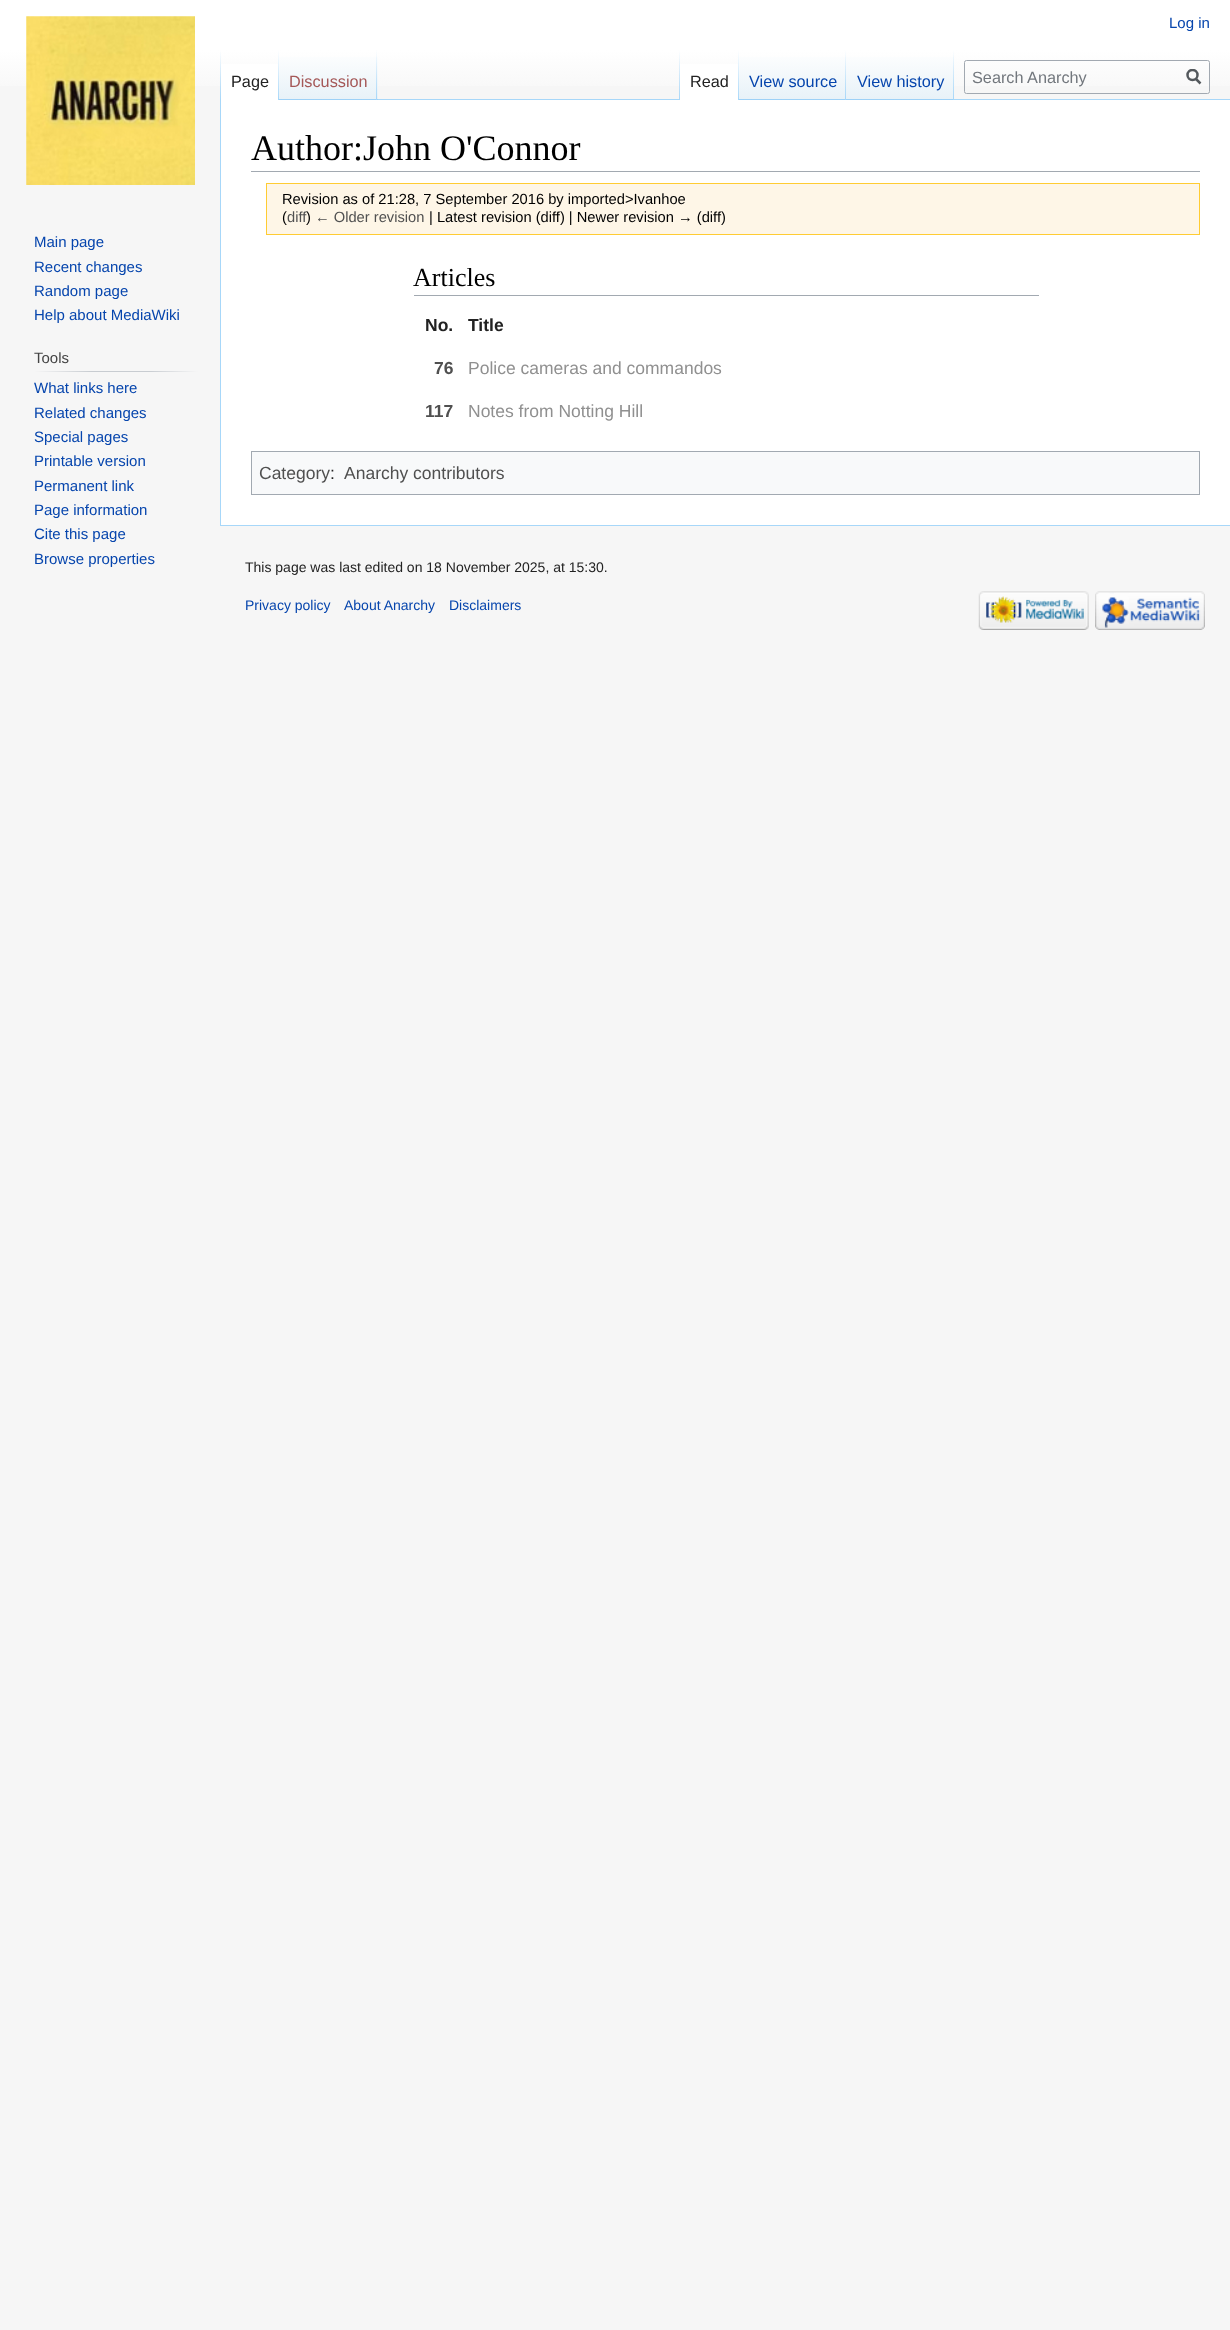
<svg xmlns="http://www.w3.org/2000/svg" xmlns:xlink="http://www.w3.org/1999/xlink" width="1230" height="2330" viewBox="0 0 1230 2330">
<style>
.cls-1{font:15px Liberation Sans;fill:#0645ad}
.cls-2{font:16.25px Liberation Sans;fill:#222222}
.cls-3{font:16.25px Liberation Sans;fill:#a55858}
.cls-4{font:16.25px Liberation Sans;fill:#0645ad}
.cls-5{font:16.25px Liberation Sans;fill:#72777d}
.cls-6{font:15px Liberation Sans;fill:#444444}
.cls-7{font:36px Liberation Serif;fill:#000000}
.cls-8{font:14.7px Liberation Sans;fill:#000000}
.cls-9{font:14.7px Liberation Sans;fill:#505050}
.cls-10{font:26px Liberation Serif;fill:#000000}
.cls-11{font:bold 17.5px Liberation Sans;fill:#222222}
.cls-12{font:bold 17.5px Liberation Sans;fill:#505050}
.cls-13{font:17.5px Liberation Sans;fill:#909090}
.cls-14{font:17.5px Liberation Sans;fill:#505050}
.cls-15{font:17.5px Liberation Sans;fill:#222222}
.cls-16{font:14px Liberation Sans;fill:#222222}
.cls-17{font:14px Liberation Sans;fill:#0645ad}
</style>
<defs>
<linearGradient id="g1" gradientUnits="userSpaceOnUse" x1="615" y1="0" x2="615" y2="100"><stop offset="0.5" stop-color="#ffffff"/><stop offset="1" stop-color="#f6f6f6"/></linearGradient>
<linearGradient id="g2" gradientUnits="userSpaceOnUse" x1="221" y1="50" x2="221" y2="100"><stop offset="0" stop-color="#a7d7f9" stop-opacity="0"/><stop offset="1" stop-color="#a7d7f9"/></linearGradient>
<linearGradient id="g3" gradientUnits="userSpaceOnUse" x1="278" y1="50" x2="278" y2="100"><stop offset="0" stop-color="#ffffff"/><stop offset="1" stop-color="#a7d7f9"/></linearGradient>
<linearGradient id="g4" gradientUnits="userSpaceOnUse" x1="328" y1="100" x2="328" y2="50"><stop offset="0" stop-color="#77c1f6"/><stop offset="0.03" stop-color="#e8f2f8"/><stop offset="1" stop-color="#ffffff"/></linearGradient>
<linearGradient id="g5" gradientUnits="userSpaceOnUse" x1="377" y1="50" x2="377" y2="100"><stop offset="0" stop-color="#a7d7f9" stop-opacity="0"/><stop offset="1" stop-color="#a7d7f9"/></linearGradient>
<linearGradient id="g6" gradientUnits="userSpaceOnUse" x1="679" y1="50" x2="679" y2="100"><stop offset="0" stop-color="#a7d7f9" stop-opacity="0"/><stop offset="1" stop-color="#a7d7f9"/></linearGradient>
<linearGradient id="g7" gradientUnits="userSpaceOnUse" x1="738" y1="50" x2="738" y2="100"><stop offset="0" stop-color="#ffffff"/><stop offset="1" stop-color="#a7d7f9"/></linearGradient>
<linearGradient id="g8" gradientUnits="userSpaceOnUse" x1="793" y1="100" x2="793" y2="50"><stop offset="0" stop-color="#77c1f6"/><stop offset="0.03" stop-color="#e8f2f8"/><stop offset="1" stop-color="#ffffff"/></linearGradient>
<linearGradient id="g9" gradientUnits="userSpaceOnUse" x1="846" y1="50" x2="846" y2="100"><stop offset="0" stop-color="#a7d7f9" stop-opacity="0"/><stop offset="1" stop-color="#a7d7f9"/></linearGradient>
<linearGradient id="g10" gradientUnits="userSpaceOnUse" x1="900" y1="100" x2="900" y2="50"><stop offset="0" stop-color="#77c1f6"/><stop offset="0.03" stop-color="#e8f2f8"/><stop offset="1" stop-color="#ffffff"/></linearGradient>
<linearGradient id="g11" gradientUnits="userSpaceOnUse" x1="953" y1="50" x2="953" y2="100"><stop offset="0" stop-color="#a7d7f9" stop-opacity="0"/><stop offset="1" stop-color="#a7d7f9"/></linearGradient>
<clipPath id="clip1"><rect x="1186" y="69" width="15" height="16"/></clipPath>
<linearGradient id="g12" gradientUnits="userSpaceOnUse" x1="34" y1="372" x2="198" y2="372"><stop offset="0" stop-color="#f6f6f6"/><stop offset="0.35" stop-color="#c8ccd1"/><stop offset="0.7" stop-color="#c8ccd1"/><stop offset="1" stop-color="#f6f6f6"/></linearGradient>
</defs>
<rect width="100%" height="100%" fill="#f6f6f6"/>
<rect fill="url(#g1)" x="0" y="0" width="1230" height="86"/>
<rect fill="#a7d7f9" x="220" y="525" width="1010" height="1"/>
<rect fill="#a7d7f9" x="220" y="99" width="1" height="427"/>
<rect fill="url(#g2)" x="220" y="50" width="1" height="50"/>
<rect fill="#ffffff" x="221" y="64" width="57" height="36"/>
<rect fill="url(#g3)" x="278" y="50" width="1" height="50"/>
<rect fill="url(#g4)" x="279" y="57" width="99" height="43"/>
<rect fill="url(#g5)" x="376" y="50" width="1" height="50"/>
<rect fill="#a7d7f9" x="378" y="99" width="852" height="1"/>
<rect fill="url(#g6)" x="679" y="50" width="1" height="50"/>
<rect fill="#ffffff" x="680" y="64" width="58" height="36"/>
<rect fill="url(#g7)" x="738" y="50" width="1" height="50"/>
<rect fill="url(#g8)" x="739" y="57" width="107" height="43"/>
<rect fill="url(#g9)" x="845" y="50" width="1" height="50"/>
<rect fill="url(#g10)" x="846" y="57" width="108" height="43"/>
<rect fill="url(#g11)" x="953" y="50" width="1" height="50"/>
<rect fill="none" stroke="#a2a9b1" x="964.5" y="60.5" width="245" height="33" rx="2"/>
<path fill="none" stroke="#54595d" stroke-width="2.5" d="M1200.5 83.5L1195.5 78.5"/>
<g clip-path="url(#clip1)">
<circle fill="none" stroke="#54595d" stroke-width="2.5" cx="1192.5" cy="75" r="5"/>
</g>
<image xlink:href="image0.png" x="26" y="16" width="169" height="169"/>
<rect fill="url(#g12)" x="34" y="371" width="164" height="1"/>
<rect fill="#ffffff" x="221" y="100" width="1009" height="425"/>
<rect fill="#a2a9b1" x="251" y="171" width="949" height="1"/>
<rect fill="#fef6e7" stroke="#ffcc33" x="266.5" y="183.5" width="933" height="51"/>
<rect fill="#a2a9b1" x="414" y="295" width="625" height="1"/>
<rect fill="#f8f9fa" stroke="#a2a9b1" x="251.5" y="451.5" width="948" height="43"/>
<image xlink:href="image1.png" x="978" y="591" width="111" height="39"/>
<image xlink:href="image2.png" x="1095" y="591" width="110" height="39"/>
<text class="cls-1" x="1169" y="28">Log in</text>
<text class="cls-2" x="231" y="87">Page</text>
<text class="cls-3" x="289" y="87">Discussion</text>
<text class="cls-2" x="690" y="87">Read</text>
<text class="cls-4" x="749" y="87">View source</text>
<text class="cls-4" x="857" y="87">View history</text>
<text class="cls-5" x="972" y="83">Search Anarchy</text>
<text class="cls-1"><tspan x="34" y="247">Main page</tspan><tspan x="34" y="272">Recent changes</tspan><tspan x="34" y="296">Random page</tspan><tspan x="34" y="320">Help about MediaWiki</tspan></text>
<text class="cls-6" x="34" y="363">Tools</text>
<text class="cls-1"><tspan x="34" y="393">What links here</tspan><tspan x="34" y="418">Related changes</tspan><tspan x="34" y="442">Special pages</tspan><tspan x="34" y="466">Printable version</tspan><tspan x="34" y="491">Permanent link</tspan><tspan x="34" y="515">Page information</tspan><tspan x="34" y="539">Cite this page</tspan><tspan x="34" y="564">Browse properties</tspan></text>
<text class="cls-7" x="251" y="160">Author:John O'Connor</text>
<text class="cls-8"><tspan x="282" y="204">Revision as of 21:28, 7 September 2016 by imported&gt;Ivanhoe</tspan><tspan x="282" y="222">(</tspan></text>
<text class="cls-9" x="287" y="222">diff</text>
<text class="cls-8" x="306" y="222">)</text>
<text class="cls-9" x="315" y="222">← Older revision</text>
<text class="cls-8" x="429" y="222">| Latest revision (diff) | Newer revision → (diff)</text>
<text class="cls-10" x="413" y="286">Articles</text>
<text class="cls-11" x="425" y="331">No.</text>
<text class="cls-11" x="468" y="331">Title</text>
<text class="cls-12" x="434" y="374">76</text>
<text class="cls-13" x="468" y="374">Police cameras and commandos</text>
<text class="cls-12" x="425" y="417">117</text>
<text class="cls-13" x="468" y="417">Notes from Notting Hill</text>
<text class="cls-14" x="259" y="479">Category</text>
<text class="cls-15" x="330" y="479">:</text>
<text class="cls-14" x="344" y="479">Anarchy contributors</text>
<text class="cls-16" x="245" y="572">This page was last edited on 18 November 2025, at 15:30.</text>
<text class="cls-17" x="245" y="610">Privacy policy</text>
<text class="cls-17" x="344" y="610">About Anarchy</text>
<text class="cls-17" x="449" y="610">Disclaimers</text>
</svg>
